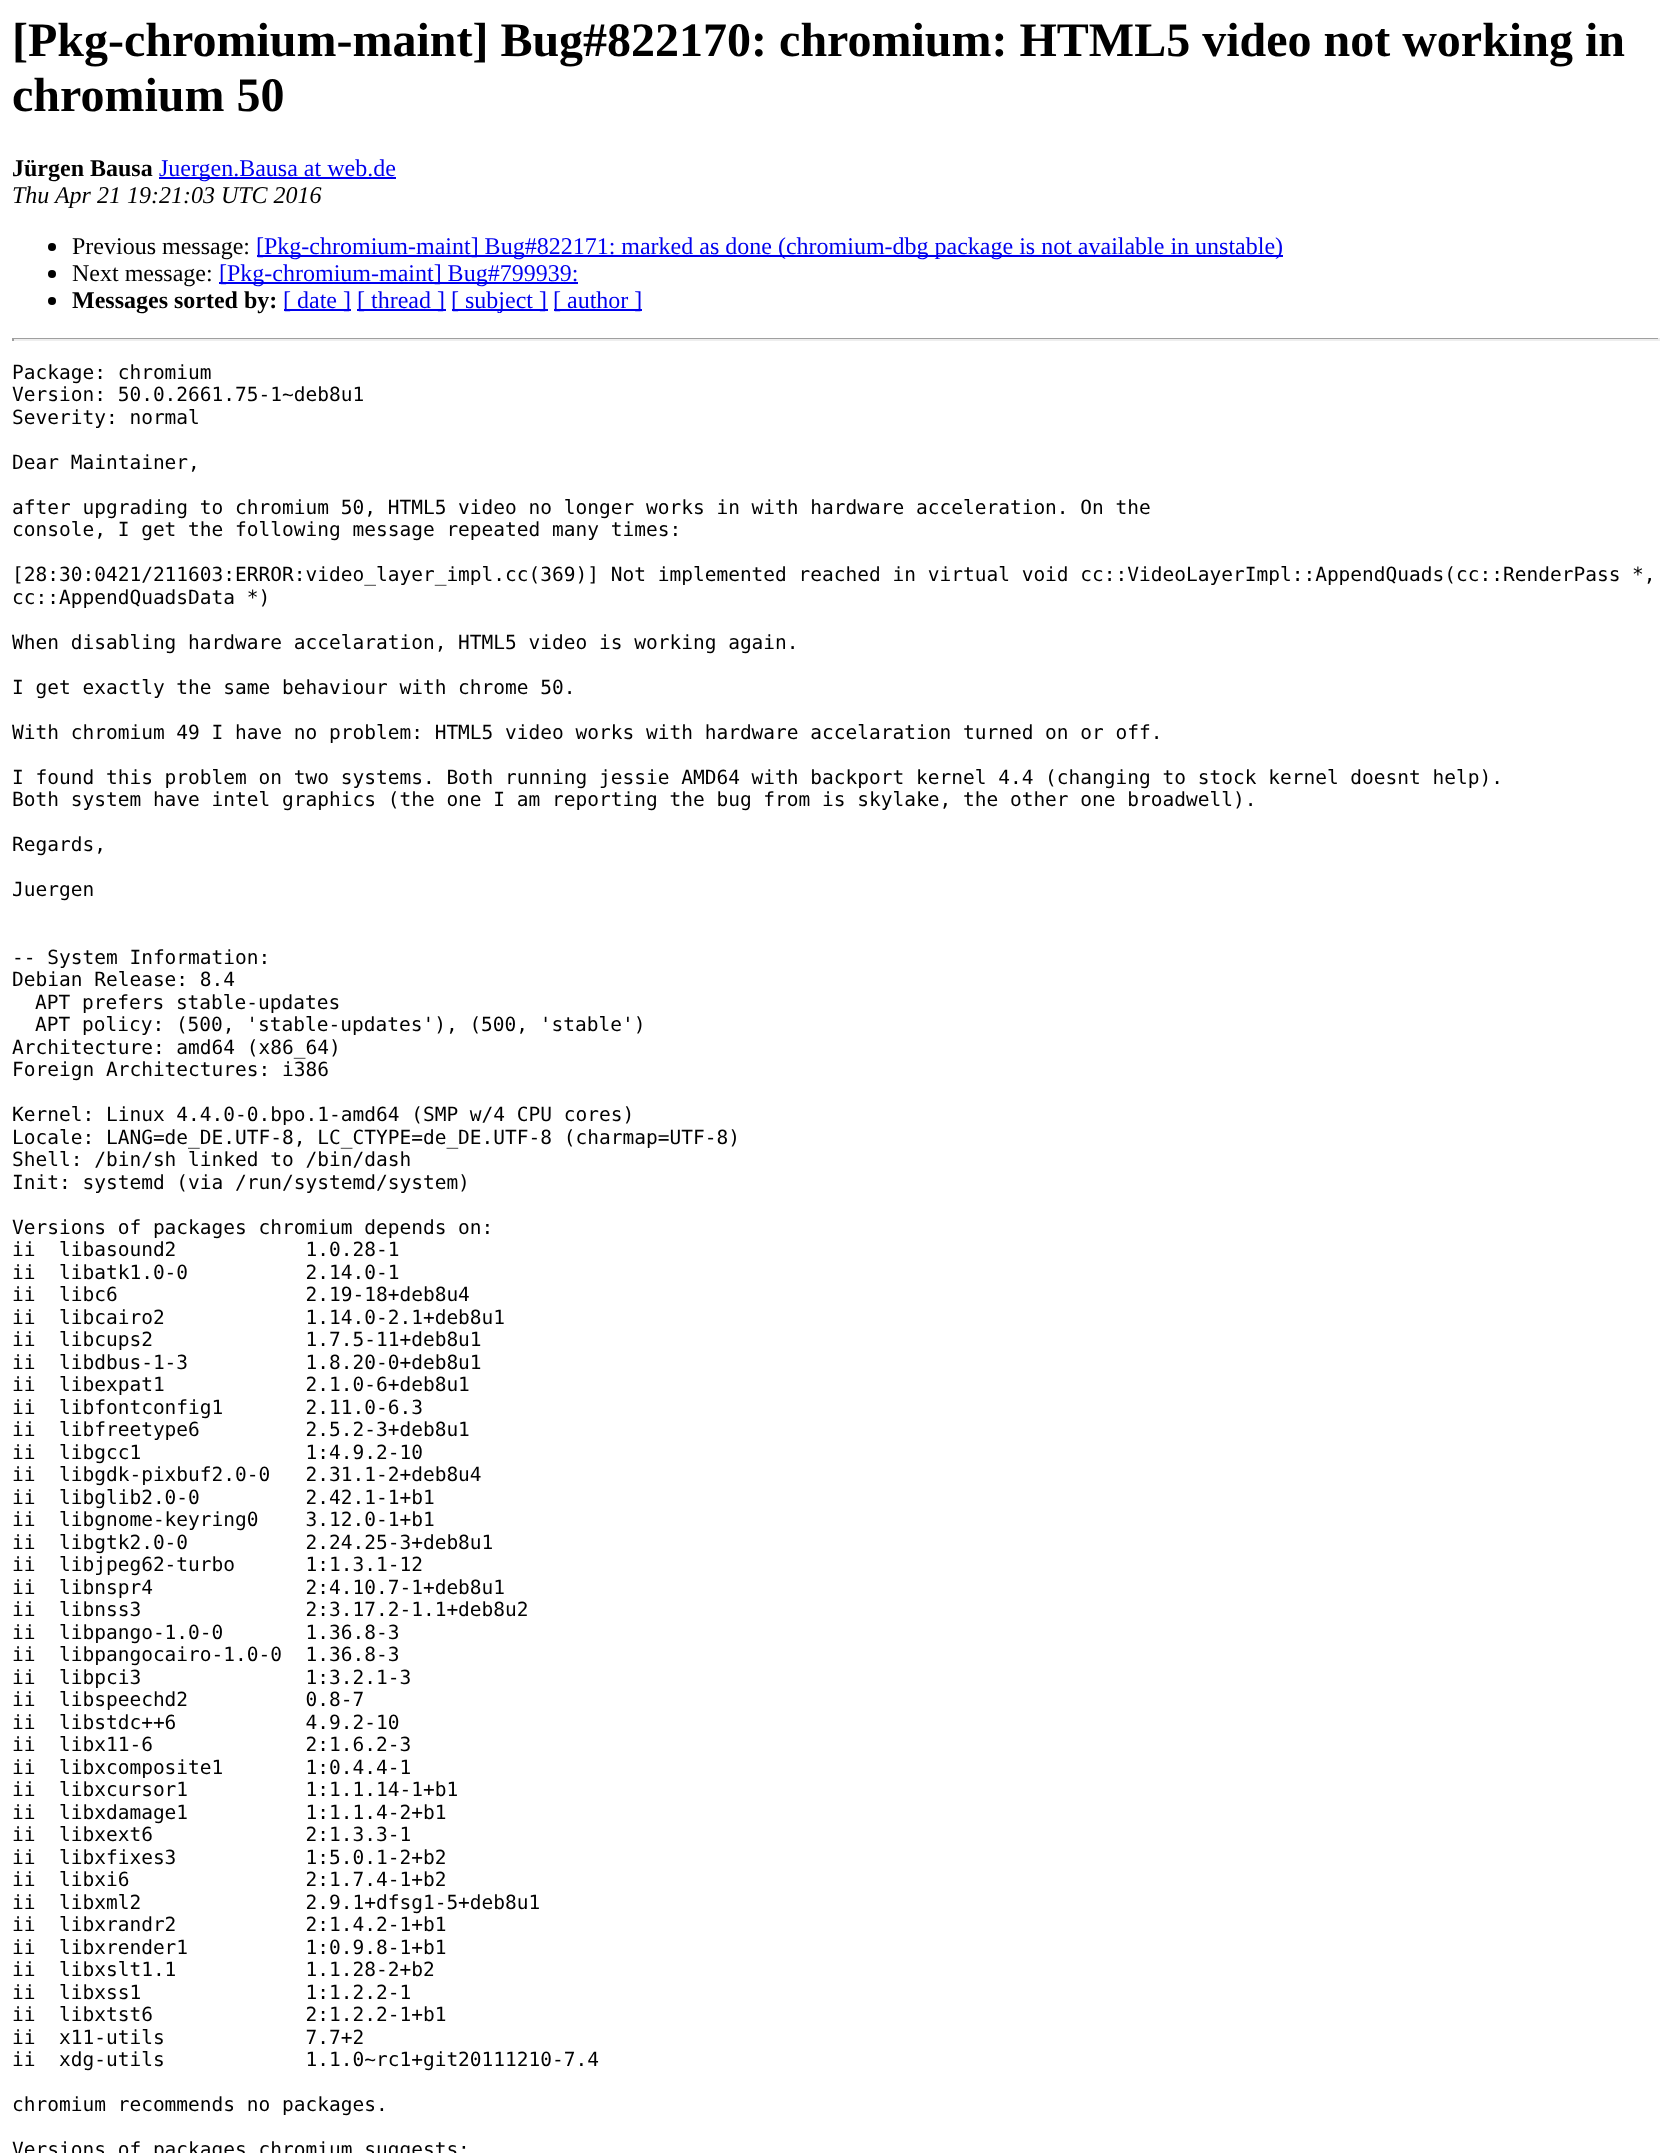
<svg xmlns="http://www.w3.org/2000/svg" xmlns:xlink="http://www.w3.org/1999/xlink" width="1670" height="2153" viewBox="0 0 1670 2153">
<style>
.cls-1{font:bold 48px Liberation Serif;fill:#000000}
.cls-2{font:bold 24px Liberation Serif;fill:#000000}
.cls-3{font:24px Liberation Serif;fill:#0000ee}
.cls-4{font:italic 24px Liberation Serif;fill:#000000}
.cls-5{font:24px Liberation Serif;fill:#000000}
.cls-6{font:19.5px DejaVu Sans Mono;fill:#000000}
</style>
<rect width="100%" height="100%" fill="#ffffff"/>
<rect fill="#0000ee" x="159" y="177" width="237" height="2"/>
<circle fill="#000000" cx="52" cy="247" r="4"/>
<rect fill="#0000ee" x="257" y="255" width="1026" height="2"/>
<circle fill="#000000" cx="52" cy="274" r="4"/>
<rect fill="#0000ee" x="219" y="282" width="359" height="2"/>
<circle fill="#000000" cx="52" cy="301" r="4"/>
<rect fill="#0000ee" x="284" y="309" width="67" height="2"/>
<rect fill="#0000ee" x="357" y="309" width="89" height="2"/>
<rect fill="#0000ee" x="452" y="309" width="96" height="2"/>
<rect fill="#0000ee" x="554" y="309" width="88" height="2"/>
<rect fill="#9f9f9f" x="12" y="338" width="1647" height="1"/>
<rect fill="#eeeeee" x="1658" y="338" width="2" height="3"/>
<rect fill="#eeeeee" x="12" y="339" width="1647" height="2"/>
<rect fill="#9f9f9f" x="12" y="338" width="2" height="3"/>
<text class="cls-1"><tspan x="12" y="56">[Pkg-chromium-maint] Bug#822170: chromium: HTML5 video not working in</tspan><tspan x="12" y="111">chromium 50</tspan></text>
<text class="cls-2" x="12" y="176">Jürgen Bausa</text>
<text class="cls-3" x="159" y="176">Juergen.Bausa at web.de</text>
<text class="cls-4" x="12" y="203">Thu Apr 21 19:21:03 UTC 2016</text>
<text class="cls-5" x="72" y="254">Previous message:</text>
<text class="cls-3" x="256" y="254">[Pkg-chromium-maint] Bug#822171: marked as done (chromium-dbg package is not available in unstable)</text>
<text class="cls-5" x="72" y="281">Next message:</text>
<text class="cls-3" x="219" y="281">[Pkg-chromium-maint] Bug#799939:</text>
<text class="cls-2" x="72" y="308">Messages sorted by:</text>
<text class="cls-3" x="283" y="308">[ date ]</text>
<text class="cls-3" x="357" y="308">[ thread ]</text>
<text class="cls-3" x="451" y="308">[ subject ]</text>
<text class="cls-3" x="553" y="308">[ author ]</text>
<text class="cls-6"><tspan x="12" y="379">Package: chromium</tspan><tspan x="12" y="401">Version: 50.0.2661.75-1~deb8u1</tspan><tspan x="12" y="424">Severity: normal</tspan></text>
<text class="cls-6" x="12" y="469">Dear Maintainer,</text>
<text class="cls-6"><tspan x="12" y="514">after upgrading to chromium 50, HTML5 video no longer works in with hardware acceleration. On the</tspan><tspan x="12" y="536">console, I get the following message repeated many times:</tspan></text>
<text class="cls-6"><tspan x="12" y="581">[28:30:0421/211603:ERROR:video_layer_impl.cc(369)] Not implemented reached in virtual void cc::VideoLayerImpl::AppendQuads(cc::RenderPass *,</tspan><tspan x="12" y="604">cc::AppendQuadsData *)</tspan></text>
<text class="cls-6" x="12" y="649">When disabling hardware accelaration, HTML5 video is working again.</text>
<text class="cls-6" x="12" y="694">I get exactly the same behaviour with chrome 50.</text>
<text class="cls-6" x="12" y="739">With chromium 49 I have no problem: HTML5 video works with hardware accelaration turned on or off.</text>
<text class="cls-6"><tspan x="12" y="784">I found this problem on two systems. Both running jessie AMD64 with backport kernel 4.4 (changing to stock kernel doesnt help).</tspan><tspan x="12" y="806">Both system have intel graphics (the one I am reporting the bug from is skylake, the other one broadwell).</tspan></text>
<text class="cls-6" x="12" y="851">Regards,</text>
<text class="cls-6" x="12" y="896">Juergen</text>
<text class="cls-6"><tspan x="12" y="964">-- System Information:</tspan><tspan x="12" y="986">Debian Release: 8.4</tspan></text>
<text class="cls-6"><tspan x="35" y="1009">APT prefers stable-updates</tspan><tspan x="35" y="1031">APT policy: (500, 'stable-updates'), (500, 'stable')</tspan></text>
<text class="cls-6"><tspan x="12" y="1054">Architecture: amd64 (x86_64)</tspan><tspan x="12" y="1076">Foreign Architectures: i386</tspan></text>
<text class="cls-6"><tspan x="12" y="1121">Kernel: Linux 4.4.0-0.bpo.1-amd64 (SMP w/4 CPU cores)</tspan><tspan x="12" y="1144">Locale: LANG=de_DE.UTF-8, LC_CTYPE=de_DE.UTF-8 (charmap=UTF-8)</tspan><tspan x="12" y="1166">Shell: /bin/sh linked to /bin/dash</tspan><tspan x="12" y="1189">Init: systemd (via /run/systemd/system)</tspan></text>
<text class="cls-6" xml:space="preserve"><tspan x="12" y="1234">Versions of packages chromium depends on:</tspan><tspan x="12" y="1256">ii  libasound2           1.0.28-1</tspan><tspan x="12" y="1279">ii  libatk1.0-0          2.14.0-1</tspan><tspan x="12" y="1301">ii  libc6                2.19-18+deb8u4</tspan><tspan x="12" y="1324">ii  libcairo2            1.14.0-2.1+deb8u1</tspan><tspan x="12" y="1346">ii  libcups2             1.7.5-11+deb8u1</tspan><tspan x="12" y="1369">ii  libdbus-1-3          1.8.20-0+deb8u1</tspan><tspan x="12" y="1391">ii  libexpat1            2.1.0-6+deb8u1</tspan><tspan x="12" y="1414">ii  libfontconfig1       2.11.0-6.3</tspan><tspan x="12" y="1436">ii  libfreetype6         2.5.2-3+deb8u1</tspan><tspan x="12" y="1459">ii  libgcc1              1:4.9.2-10</tspan><tspan x="12" y="1481">ii  libgdk-pixbuf2.0-0   2.31.1-2+deb8u4</tspan><tspan x="12" y="1504">ii  libglib2.0-0         2.42.1-1+b1</tspan><tspan x="12" y="1526">ii  libgnome-keyring0    3.12.0-1+b1</tspan><tspan x="12" y="1549">ii  libgtk2.0-0          2.24.25-3+deb8u1</tspan><tspan x="12" y="1571">ii  libjpeg62-turbo      1:1.3.1-12</tspan><tspan x="12" y="1594">ii  libnspr4             2:4.10.7-1+deb8u1</tspan><tspan x="12" y="1616">ii  libnss3              2:3.17.2-1.1+deb8u2</tspan><tspan x="12" y="1639">ii  libpango-1.0-0       1.36.8-3</tspan><tspan x="12" y="1661">ii  libpangocairo-1.0-0  1.36.8-3</tspan><tspan x="12" y="1684">ii  libpci3              1:3.2.1-3</tspan><tspan x="12" y="1706">ii  libspeechd2          0.8-7</tspan><tspan x="12" y="1729">ii  libstdc++6           4.9.2-10</tspan><tspan x="12" y="1751">ii  libx11-6             2:1.6.2-3</tspan><tspan x="12" y="1774">ii  libxcomposite1       1:0.4.4-1</tspan><tspan x="12" y="1796">ii  libxcursor1          1:1.1.14-1+b1</tspan><tspan x="12" y="1819">ii  libxdamage1          1:1.1.4-2+b1</tspan><tspan x="12" y="1841">ii  libxext6             2:1.3.3-1</tspan><tspan x="12" y="1864">ii  libxfixes3           1:5.0.1-2+b2</tspan><tspan x="12" y="1886">ii  libxi6               2:1.7.4-1+b2</tspan><tspan x="12" y="1909">ii  libxml2              2.9.1+dfsg1-5+deb8u1</tspan><tspan x="12" y="1931">ii  libxrandr2           2:1.4.2-1+b1</tspan><tspan x="12" y="1954">ii  libxrender1          1:0.9.8-1+b1</tspan><tspan x="12" y="1976">ii  libxslt1.1           1.1.28-2+b2</tspan><tspan x="12" y="1999">ii  libxss1              1:1.2.2-1</tspan><tspan x="12" y="2021">ii  libxtst6             2:1.2.2-1+b1</tspan><tspan x="12" y="2044">ii  x11-utils            7.7+2</tspan><tspan x="12" y="2066">ii  xdg-utils            1.1.0~rc1+git20111210-7.4</tspan></text>
<text class="cls-6" x="12" y="2111">chromium recommends no packages.</text>
<text class="cls-6" x="12" y="2156">Versions of packages chromium suggests:</text>
</svg>
